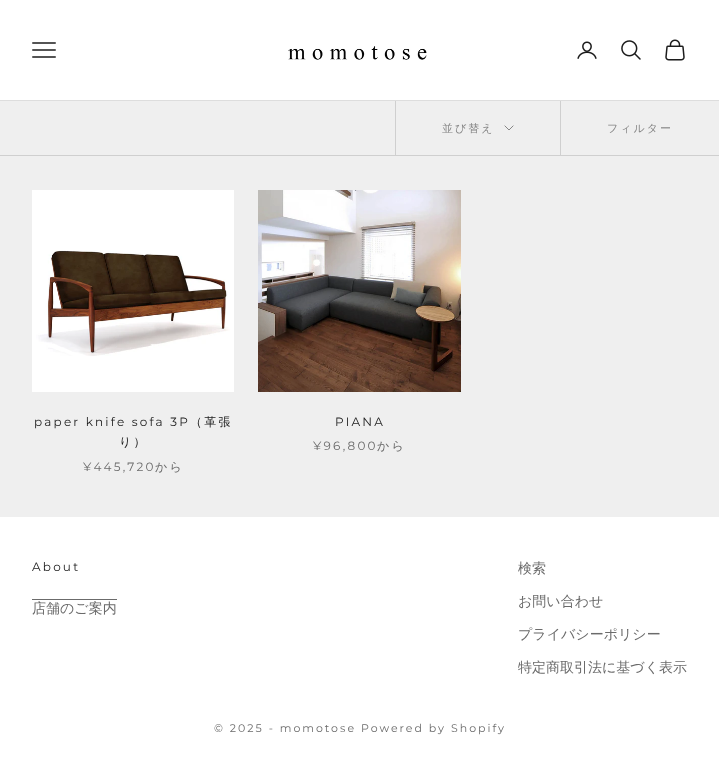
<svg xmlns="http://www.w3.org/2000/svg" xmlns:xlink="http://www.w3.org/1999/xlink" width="719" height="778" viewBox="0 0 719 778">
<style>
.cls-1{font:500 11px WenQuanYi Zen Hei;letter-spacing:2px;fill:#868686}
.cls-2{font:12px Montserrat;letter-spacing:2.2px;fill:#1c1c1c}
.cls-3{font:500 12px WenQuanYi Zen Hei;letter-spacing:2.2px;fill:#1c1c1c}
.cls-4{font:12px Montserrat;letter-spacing:2.2px;fill:#6b6b6b}
.cls-5{font:500 12px WenQuanYi Zen Hei;letter-spacing:2.2px;fill:#6b6b6b}
.cls-6{font:500 14px WenQuanYi Zen Hei;fill:#6b6b6b}
.cls-7{font:11px Montserrat;letter-spacing:2px;fill:#6b6b6b}
</style>
<rect width="100%" height="100%" fill="#efefef"/>
<rect fill="#ffffff" x="0" y="0" width="719" height="100"/>
<rect fill="#dddddd" x="0" y="100" width="719" height="1"/>
<path fill="none" stroke="#1c1c1c" stroke-width="1.5" stroke-linecap="square" d="M33 57H55M33 50H55M33 43H55"/>
<image xlink:href="image0.png" x="288" y="46" width="139" height="14"/>
<image xlink:href="image1.png" x="577" y="41" width="20" height="18"/>
<image xlink:href="image2.png" x="621" y="40" width="20" height="20"/>
<image xlink:href="image3.png" x="665" y="39" width="20" height="22"/>
<rect fill="#cfcfcf" x="0" y="155" width="719" height="1"/>
<rect fill="#cfcfcf" x="395" y="101" width="1" height="54"/>
<path fill="none" stroke="#868686" stroke-linecap="square" d="M505 126L509 130L513 126"/>
<rect fill="#cfcfcf" x="560" y="101" width="1" height="54"/>
<image xlink:href="image4.png" x="32" y="190" width="202" height="202"/>
<image xlink:href="image5.png" x="258" y="190" width="203" height="202"/>
<rect fill="#ffffff" x="0" y="517" width="719" height="261"/>
<rect fill="#6b6b6b" x="32" y="599" width="85" height="1"/>
<text class="cls-1" x="442" y="132">並び替え</text>
<text class="cls-1" x="607" y="132">フィルター</text>
<text class="cls-2" x="34" y="426">paper knife sofa 3P</text>
<text class="cls-3" x="190" y="426">（革張</text>
<text class="cls-3" x="119" y="446">り）</text>
<text class="cls-4" x="83" y="471">¥445,720</text>
<text class="cls-5" x="155" y="471">から</text>
<text class="cls-2" x="335" y="426">PIANA</text>
<text class="cls-4" x="313" y="450">¥96,800</text>
<text class="cls-5" x="377" y="450">から</text>
<text class="cls-2" x="32" y="571">About</text>
<text class="cls-6" x="32" y="613">店舗のご案内</text>
<text class="cls-6" x="518" y="573">検索</text>
<text class="cls-6" x="518" y="606">お問い合わせ</text>
<text class="cls-6" x="518" y="639">プライバシーポリシー</text>
<text class="cls-6" x="518" y="672">特定商取引法に基づく表示</text>
<text class="cls-7" x="214" y="732">© 2025 - momotose Powered by Shopify</text>
</svg>
